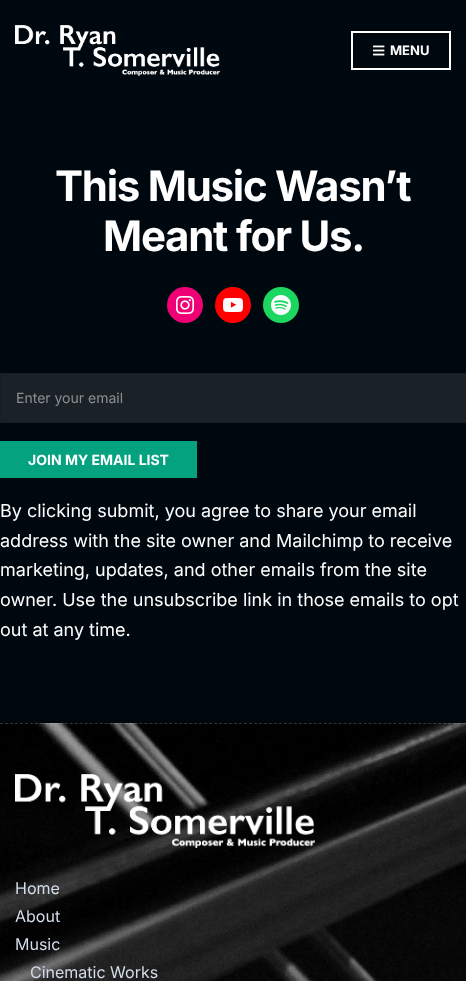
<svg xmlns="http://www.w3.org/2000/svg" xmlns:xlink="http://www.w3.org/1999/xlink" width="466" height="981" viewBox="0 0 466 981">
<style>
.cls-1{font:bold 13px Inter;fill:#ffffff}
.cls-2{font:bold 42px Inter;letter-spacing:-1.25px;fill:#ffffff}
.cls-3{font:14px Inter;fill:#8d9093}
.cls-4{font:bold 14px Inter;fill:#ffffff}
.cls-5{font:18px Inter;fill:#ffffff}
.cls-6{font:16px Inter;fill:#d3dcea}
</style>
<rect width="100%" height="100%" fill="#00080f"/>
<image xlink:href="image0.png" x="15" y="25" width="205" height="51"/>
<rect fill="none" stroke="#ffffff" stroke-width="2" x="352" y="32" width="98" height="37"/>
<image xlink:href="image1.png" x="373" y="45" width="12" height="11"/>
<circle fill="#f00075" cx="185" cy="305" r="18"/>
<image xlink:href="image2.png" x="176" y="296" width="18" height="18"/>
<circle fill="#ff0000" cx="233" cy="305" r="18"/>
<image xlink:href="image3.png" x="223" y="298" width="20" height="14"/>
<circle fill="#1bd760" cx="281" cy="305" r="18"/>
<image xlink:href="image4.png" x="271" y="295" width="20" height="20"/>
<rect fill="#1a2127" stroke="#181e23" x="0.5" y="373.5" width="465" height="49"/>
<rect fill="#05a280" x="0" y="441" width="197" height="37"/>
<image xlink:href="image5.png" x="0" y="723" width="466" height="258"/>
<path fill="none" stroke="#ffffff" stroke-opacity="0.2" stroke-dasharray="3 1.98" d="M0 723.5H466"/>
<image xlink:href="image6.png" x="15" y="774" width="300" height="74"/>
<text class="cls-1" x="390" y="55">MENU</text>
<text class="cls-2" x="55" y="201">This Music Wasn’t</text>
<text class="cls-2" x="103" y="251">Meant for Us.</text>
<text class="cls-3" x="16" y="403">Enter your email</text>
<text class="cls-4" x="28" y="465">JOIN MY EMAIL LIST</text>
<text class="cls-5"><tspan x="0" y="517">By clicking submit, you agree to share your email</tspan><tspan x="0" y="547">address with the site owner and Mailchimp to receive</tspan><tspan x="0" y="576">marketing, updates, and other emails from the site</tspan><tspan x="0" y="606">owner. Use the unsubscribe link in those emails to opt</tspan><tspan x="0" y="636">out at any time.</tspan></text>
<text class="cls-6"><tspan x="15" y="894">Home</tspan><tspan x="15" y="922">About</tspan><tspan x="15" y="950">Music</tspan></text>
<text class="cls-6" x="30" y="978">Cinematic Works</text>
</svg>
